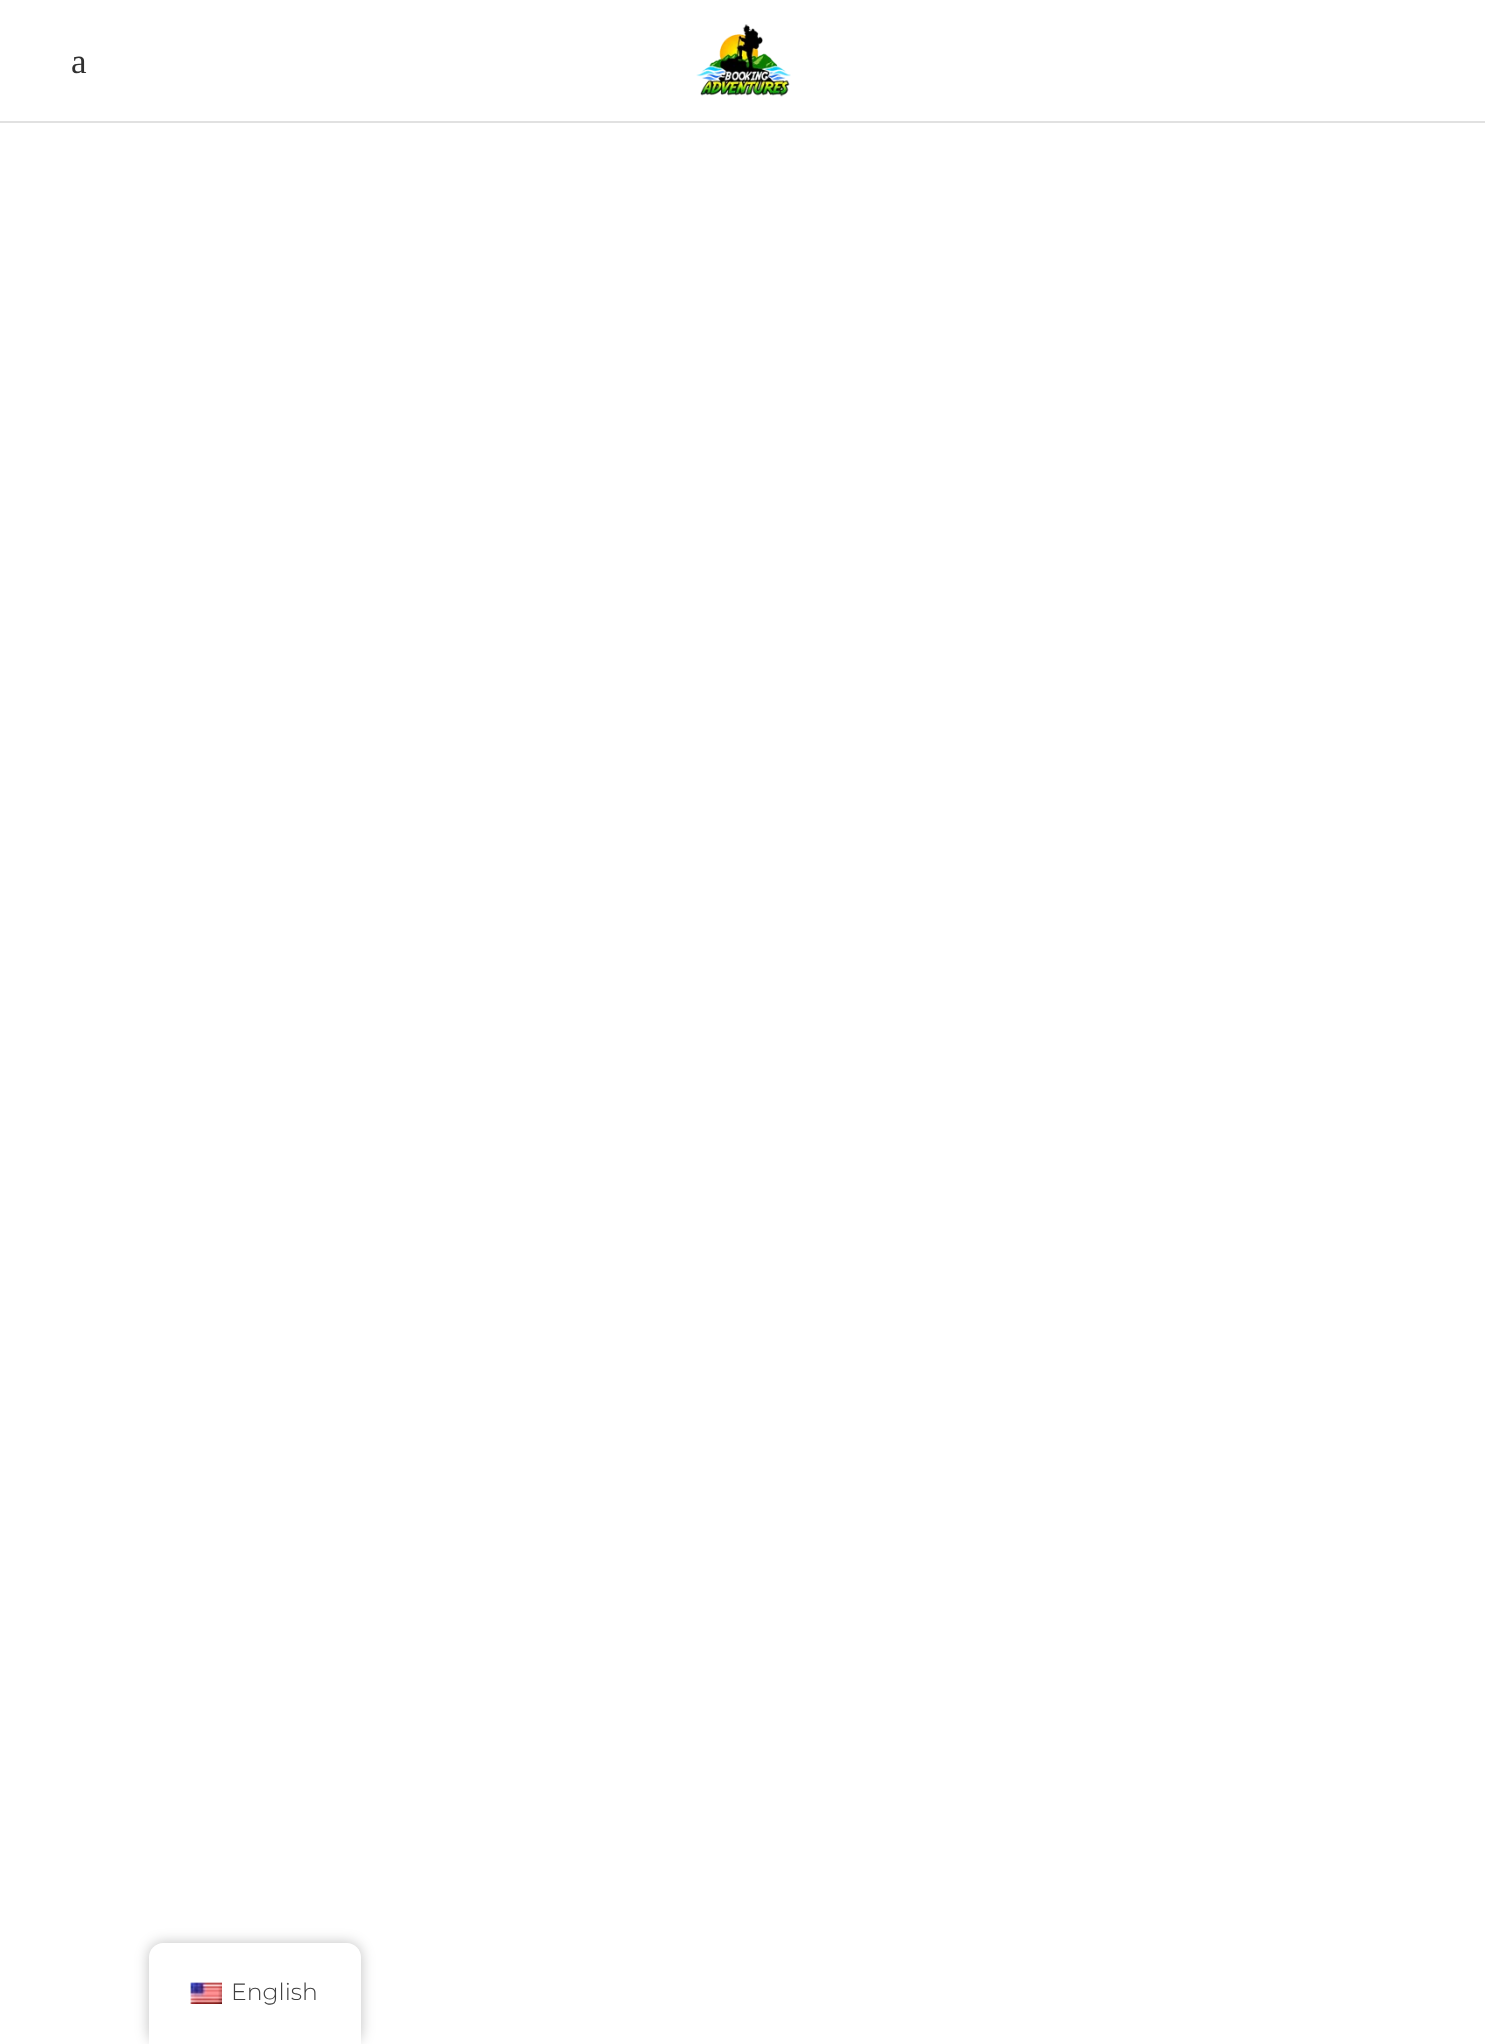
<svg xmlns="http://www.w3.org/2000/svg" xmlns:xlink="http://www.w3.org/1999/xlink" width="1485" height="2044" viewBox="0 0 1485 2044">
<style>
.cls-1{font:35px Liberation Serif;fill:#303030}
.cls-2{font:300 23.5px Montserrat;fill:#404040}
</style>
<rect width="100%" height="100%" fill="#ffffff"/>
<rect fill="#e1e1e1" x="0" y="121" width="1485" height="2"/>
<image xlink:href="image0.png" x="696" y="24" width="95" height="73"/>
<rect fill="#000000" fill-opacity="0.25" filter="blur(7px)" x="149" y="1943" width="212" height="101" rx="14"/>
<path fill="#ffffff" d="M163 1943H347C354.5 1943 361 1949.5 361 1957V2044H149V1957C149 1949.5 155.5 1943 163 1943Z"/>
<image xlink:href="image1.png" x="190" y="1982" width="32" height="22"/>
<text class="cls-1" x="71" y="73">a</text>
<text class="cls-2" x="231" y="2000">English</text>
</svg>
